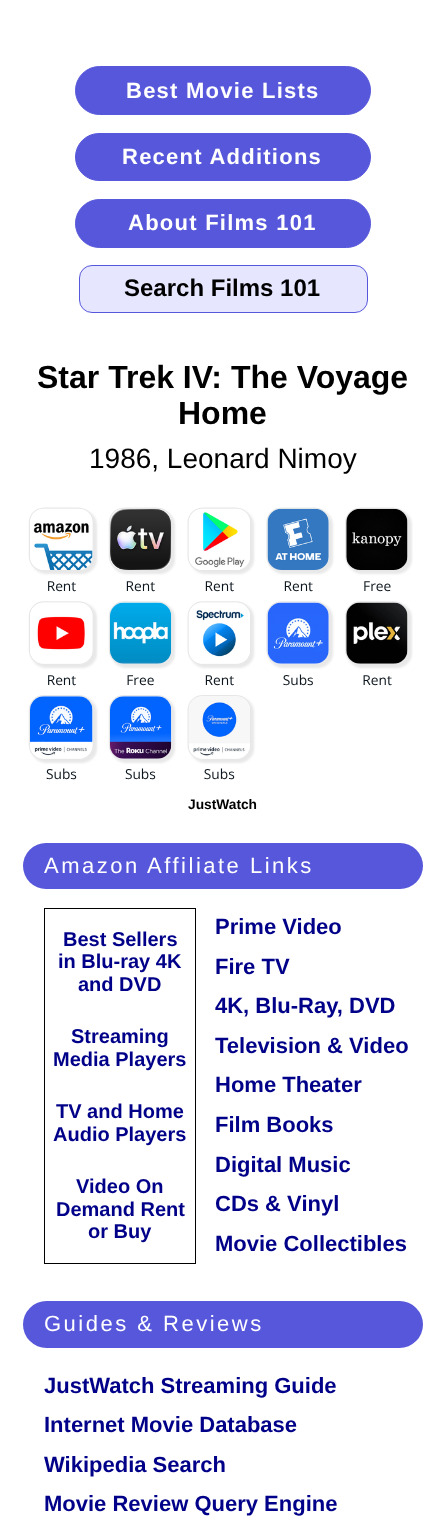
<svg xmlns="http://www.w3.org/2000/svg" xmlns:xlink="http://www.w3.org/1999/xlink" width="445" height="1525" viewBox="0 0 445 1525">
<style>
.cls-1{font:bold 22px Liberation Sans;letter-spacing:1.25px;fill:#ffffff}
.cls-2{font:bold 24px Liberation Sans;fill:#000000}
.cls-3{font:bold 32px Liberation Sans;fill:#000000}
.cls-4{font:28px Liberation Sans;fill:#000000}
.cls-5{font:bold 13.75px Liberation Sans;fill:#000000}
.cls-6{font:22px Liberation Sans;letter-spacing:2.5px;fill:#ffffff}
.cls-7{font:bold 20px Liberation Sans;fill:#000088}
.cls-8{font:bold 22px Liberation Sans;fill:#000088}
</style>
<rect width="100%" height="100%" fill="#ffffff"/>
<rect fill="#5757db" stroke="#5757db" x="75.5" y="66.5" width="295" height="48" rx="24"/>
<rect fill="#5757db" stroke="#5757db" x="75.5" y="133.5" width="295" height="47" rx="23.5"/>
<rect fill="#5757db" stroke="#5757db" x="75.5" y="199.5" width="295" height="48" rx="24"/>
<rect fill="#e6e6ff" stroke="#5757db" x="79.5" y="265.5" width="288" height="47" rx="12.5"/>
<image xlink:href="image0.png" x="28" y="507" width="385" height="273"/>
<rect fill="#5757db" x="23" y="843" width="400" height="46" rx="23"/>
<rect fill="none" stroke="#000000" x="44.5" y="908.5" width="151" height="355"/>
<rect fill="#5757db" x="23" y="1301" width="400" height="47" rx="23.5"/>
<text class="cls-1" x="126" y="98">Best Movie Lists</text>
<text class="cls-1" x="122" y="164">Recent Additions</text>
<text class="cls-1" x="128" y="230">About Films 101</text>
<text class="cls-2" x="124" y="296">Search Films 101</text>
<text class="cls-3" x="37" y="388">Star Trek IV: The Voyage</text>
<text class="cls-3" x="178" y="424">Home</text>
<text class="cls-4" x="89" y="468">1986, Leonard Nimoy</text>
<text class="cls-5" x="188" y="809">JustWatch</text>
<text class="cls-6" x="44" y="873">Amazon Affiliate Links</text>
<text class="cls-7" x="63" y="946">Best Sellers</text>
<text class="cls-7" x="58" y="968">in Blu-ray 4K</text>
<text class="cls-7" x="78" y="991">and DVD</text>
<text class="cls-7" x="71" y="1043">Streaming</text>
<text class="cls-7" x="53" y="1066">Media Players</text>
<text class="cls-7" x="56" y="1118">TV and Home</text>
<text class="cls-7" x="53" y="1141">Audio Players</text>
<text class="cls-7" x="76" y="1193">Video On</text>
<text class="cls-7" x="56" y="1216">Demand Rent</text>
<text class="cls-7" x="88" y="1238">or Buy</text>
<text class="cls-8"><tspan x="215" y="934">Prime Video</tspan><tspan x="215" y="974">Fire TV</tspan><tspan x="215" y="1013">4K, Blu-Ray, DVD</tspan><tspan x="215" y="1053">Television &amp; Video</tspan><tspan x="215" y="1092">Home Theater</tspan><tspan x="215" y="1132">Film Books</tspan><tspan x="215" y="1172">Digital Music</tspan><tspan x="215" y="1211">CDs &amp; Vinyl</tspan><tspan x="215" y="1251">Movie Collectibles</tspan></text>
<text class="cls-6" x="44" y="1331">Guides &amp; Reviews</text>
<text class="cls-8"><tspan x="44" y="1393">JustWatch Streaming Guide</tspan><tspan x="44" y="1432">Internet Movie Database</tspan><tspan x="44" y="1472">Wikipedia Search</tspan><tspan x="44" y="1511">Movie Review Query Engine</tspan></text>
</svg>
